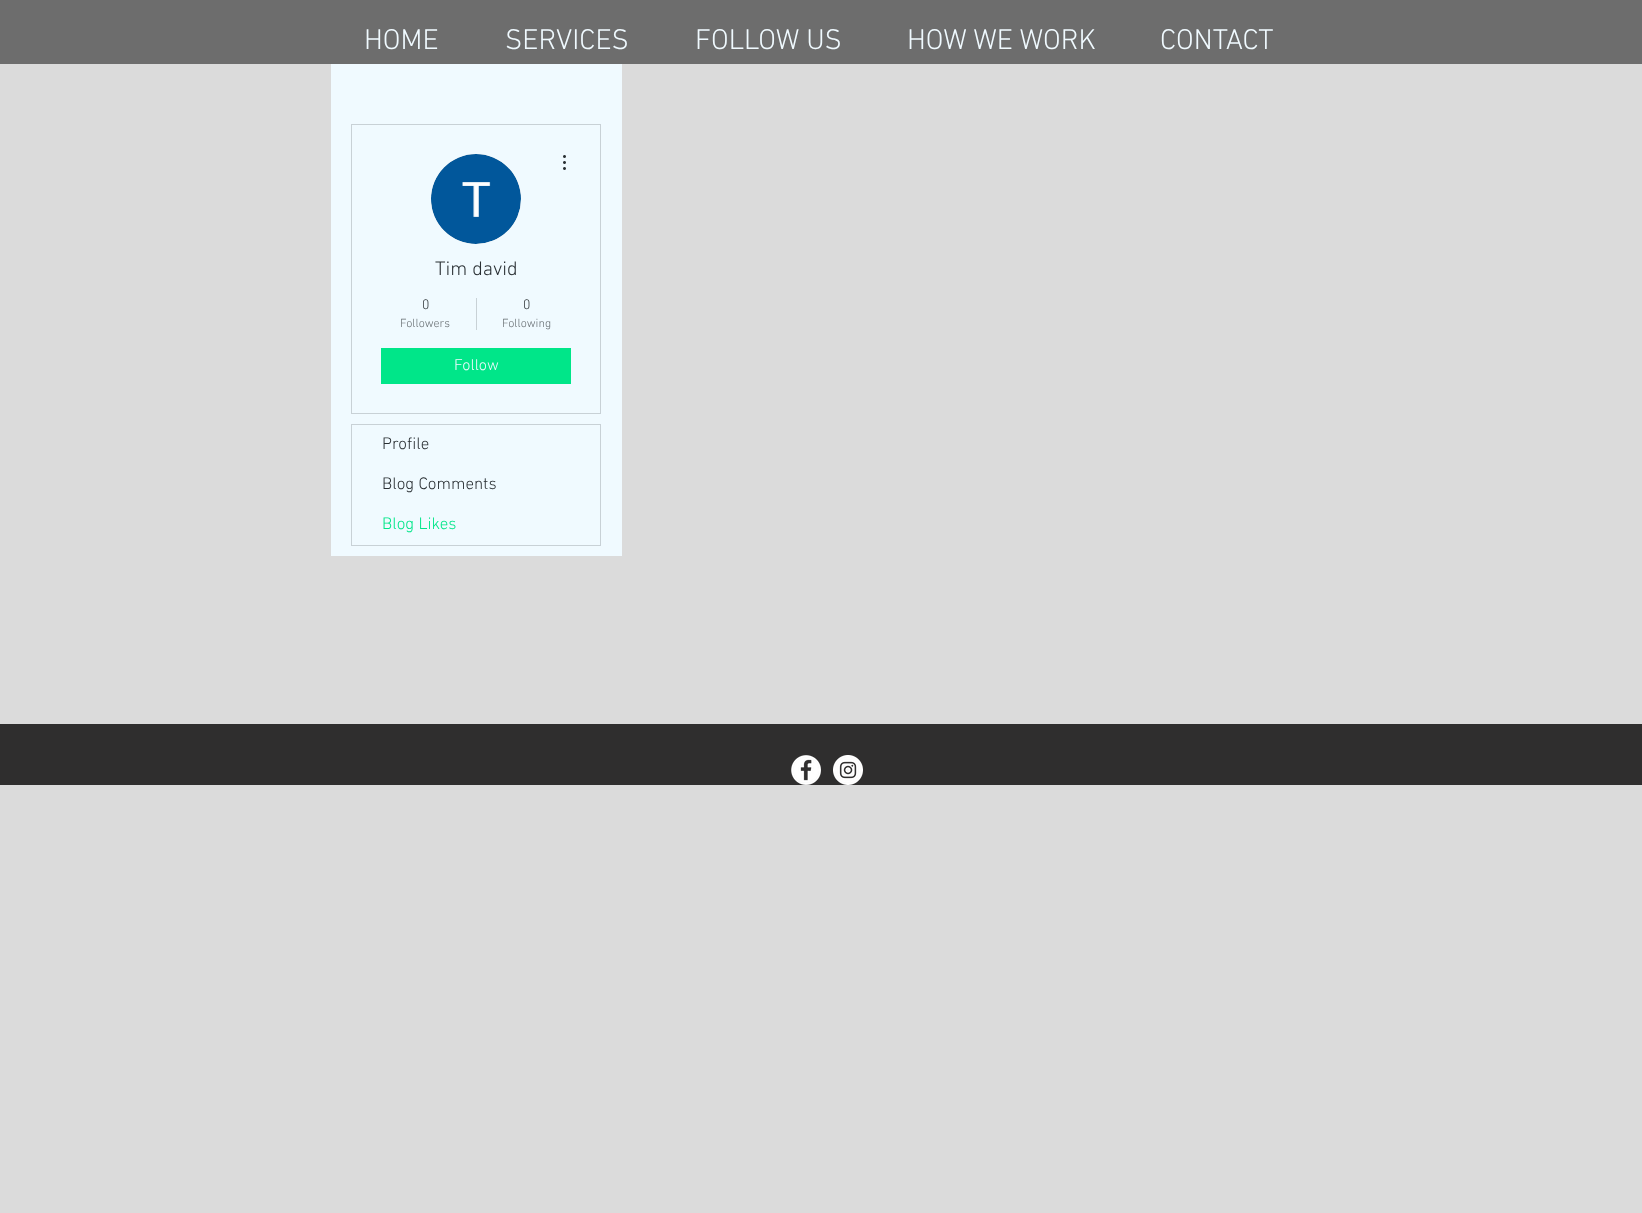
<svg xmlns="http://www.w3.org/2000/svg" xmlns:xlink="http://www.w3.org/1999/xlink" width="1642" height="1213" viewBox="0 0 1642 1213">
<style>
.cls-1{font:300 29px 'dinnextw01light';fill:#f0faff}
.cls-2{font:300 20px 'dinnextw01light';fill:#292f33}
.cls-3{font:300 14px 'dinnextw01light';fill:#292f33}
.cls-4{font:300 12px 'dinnextw01light';fill:#656c70}
.cls-5{font:300 16px 'dinnextw01light';fill:#f0faff}
.cls-6{font:300 17px 'dinnextw01light';fill:#292f33}
.cls-7{font:300 17px 'dinnextw01light';fill:#00e689}
</style>
<rect width="100%" height="100%" fill="#dbdbdb"/>
<rect fill="#6d6d6d" x="0" y="0" width="1642" height="64"/>
<rect fill="#f0faff" x="331" y="64" width="291" height="492"/>
<rect fill="none" stroke="#c8d1d6" x="351.5" y="124.5" width="249" height="289"/>
<circle fill="#d8d8d8" cx="476" cy="199" r="45"/>
<image xlink:href="image0.png" x="431" y="154" width="90" height="90"/>
<image xlink:href="image1.png" x="563" y="155" width="3" height="15"/>
<rect fill="#c8d1d6" x="476" y="298" width="1" height="32"/>
<rect fill="#00e689" x="381" y="348" width="190" height="36"/>
<rect fill="none" stroke="#c8d1d6" x="351.5" y="424.5" width="249" height="121"/>
<rect fill="#2f2e2e" x="0" y="724" width="1642" height="61"/>
<image xlink:href="image2.png" x="791" y="755" width="30" height="30"/>
<image xlink:href="image3.png" x="833" y="755" width="30" height="30"/>
<text class="cls-1" x="364" y="49">HOME</text>
<text class="cls-1" x="505" y="49">SERVICES</text>
<text class="cls-1" x="695" y="49">FOLLOW US</text>
<text class="cls-1" x="907" y="49">HOW WE WORK</text>
<text class="cls-1" x="1160" y="49">CONTACT</text>
<text class="cls-2" x="435" y="275">Tim david</text>
<text class="cls-3" x="422" y="309">0</text>
<text class="cls-4" x="400" y="327">Followers</text>
<text class="cls-3" x="523" y="309">0</text>
<text class="cls-4" x="502" y="327">Following</text>
<text class="cls-5" x="454" y="370">Follow</text>
<text class="cls-6" x="382" y="449">Profile</text>
<text class="cls-6" x="382" y="489">Blog Comments</text>
<text class="cls-7" x="382" y="529">Blog Likes</text>
</svg>
